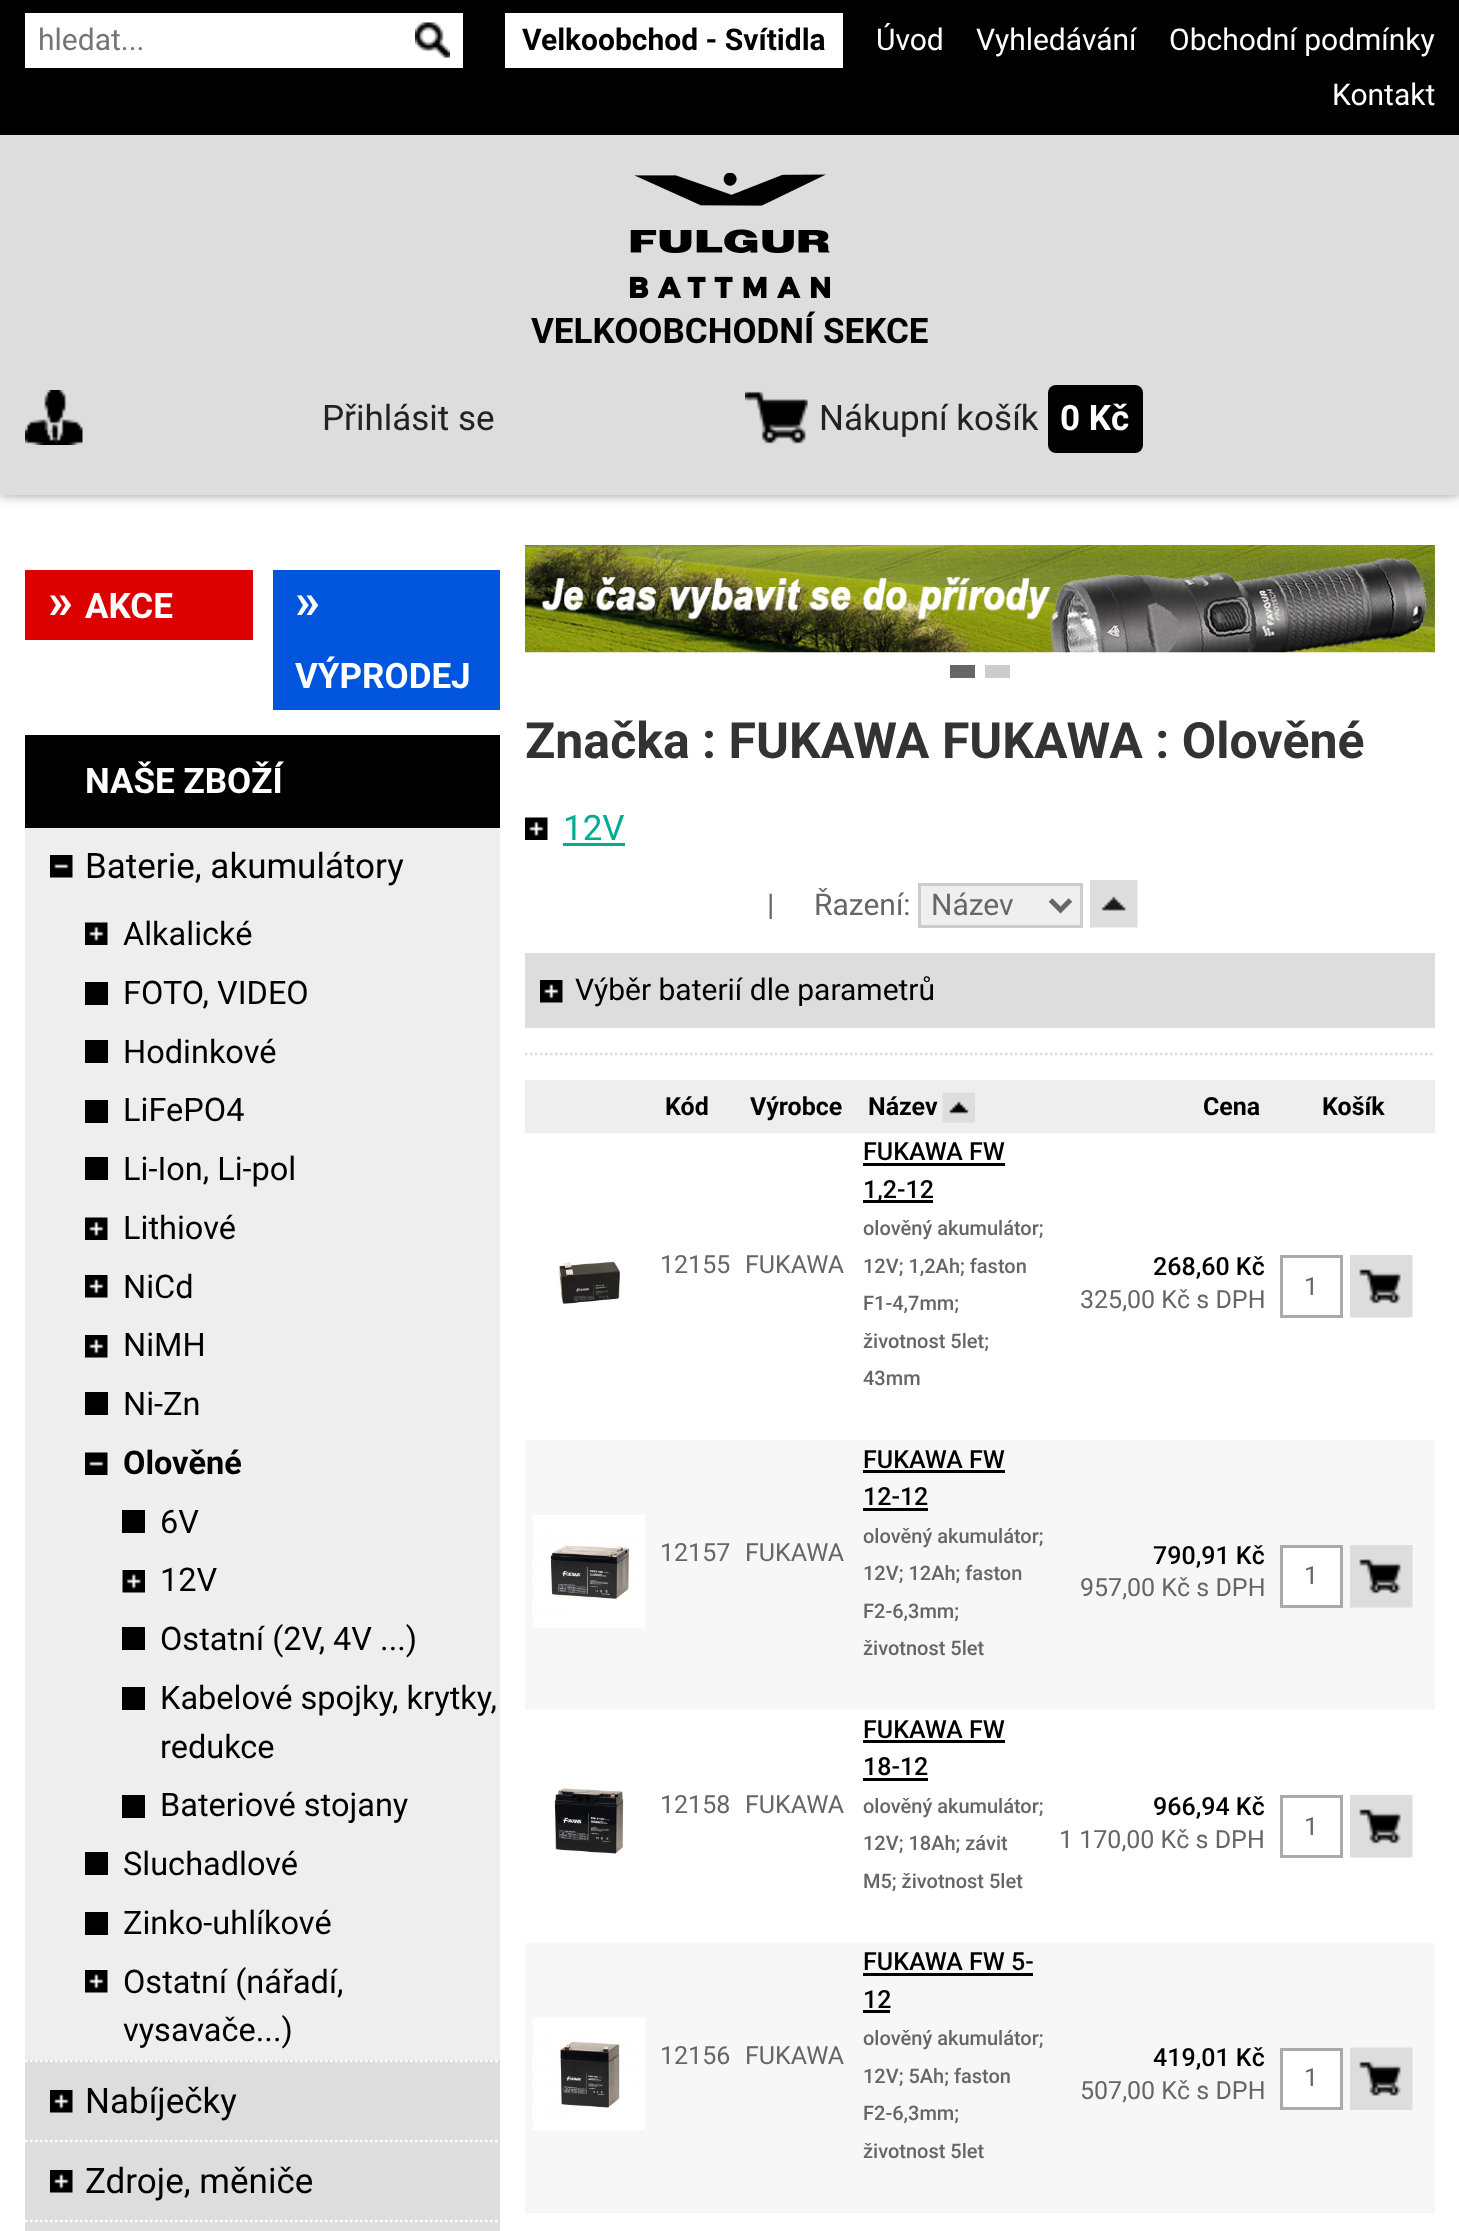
<svg xmlns="http://www.w3.org/2000/svg" xmlns:xlink="http://www.w3.org/1999/xlink" width="1459" height="2231" viewBox="0 0 1459 2231">
<style>
.cls-1{font:30px Roboto;fill:#757575}
.cls-2{font:bold 30px Roboto;fill:#000000}
.cls-3{font:30px Roboto;fill:#ffffff}
.cls-4{font:bold 35px Roboto;fill:#000000}
.cls-5{font:35px Roboto;fill:#222222}
.cls-6{font:bold 35px Roboto;fill:#ffffff}
.cls-7{font:bold 50px Roboto;fill:#ffffff}
.cls-8{font:35px Roboto;fill:#000000}
.cls-9{font:32.5px Roboto;fill:#000000}
.cls-10{font:bold 32.5px Roboto;fill:#000000}
.cls-11{font:bold 50px Roboto;fill:#333333}
.cls-12{font:35px Roboto;fill:#00ac91}
.cls-13{font:30px Roboto;fill:#666666}
.cls-14{font:30px Roboto;fill:#000000}
.cls-15{font:bold 25px Roboto;fill:#000000}
.cls-16{font:25px Roboto;fill:#666666}
.cls-17{font:500 25px Roboto;fill:#000000}
.cls-18{font:500 20px Roboto;fill:#666666}
</style>
<rect width="100%" height="100%" fill="#ffffff"/>
<rect fill="#000000" x="0" y="0" width="1459" height="135"/>
<rect fill="#ffffff" x="25" y="13" width="438" height="55"/>
<image xlink:href="image0.png" x="415" y="22" width="35" height="36"/>
<rect fill="#ffffff" x="505" y="13" width="338" height="55"/>
<rect fill="#000000" fill-opacity="0.4" filter="blur(6px)" x="0" y="135" width="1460" height="360"/>
<rect fill="#dddddd" x="0" y="135" width="1459" height="360"/>
<image xlink:href="image1.png" x="630" y="173" width="200" height="125"/>
<image xlink:href="image2.png" x="25" y="390" width="58" height="55"/>
<image xlink:href="image3.png" x="745" y="391" width="63" height="53"/>
<rect fill="#000000" x="1048" y="385" width="95" height="68" rx="8"/>
<rect fill="#dd0000" x="25" y="570" width="228" height="70"/>
<rect fill="#0055dd" x="273" y="570" width="227" height="140"/>
<rect fill="#dddddd" x="25" y="2060" width="475" height="171"/>
<rect fill="#000000" x="25" y="735" width="475" height="93"/>
<rect fill="#eeeeee" x="25" y="828" width="475" height="1232"/>
<image xlink:href="image4.png" x="50" y="855" width="23" height="23"/>
<image xlink:href="image5.png" x="85" y="922" width="23" height="23"/>
<rect fill="#000000" x="85" y="982" width="23" height="23"/>
<rect fill="#000000" x="85" y="1040" width="23" height="23"/>
<rect fill="#000000" x="85" y="1100" width="23" height="23"/>
<rect fill="#000000" x="85" y="1157" width="23" height="23"/>
<image xlink:href="image5.png" x="85" y="1217" width="23" height="23"/>
<image xlink:href="image6.png" x="85" y="1275" width="23" height="23"/>
<image xlink:href="image6.png" x="85" y="1335" width="23" height="23"/>
<rect fill="#000000" x="85" y="1392" width="23" height="23"/>
<image xlink:href="image7.png" x="85" y="1452" width="23" height="23"/>
<rect fill="#000000" x="122" y="1510" width="23" height="23"/>
<image xlink:href="image8.png" x="122" y="1570" width="23" height="23"/>
<rect fill="#000000" x="122" y="1627" width="23" height="23"/>
<rect fill="#000000" x="122" y="1687" width="23" height="23"/>
<rect fill="#000000" x="122" y="1795" width="23" height="23"/>
<rect fill="#000000" x="85" y="1852" width="23" height="23"/>
<rect fill="#000000" x="85" y="1912" width="23" height="23"/>
<image xlink:href="image6.png" x="85" y="1970" width="23" height="23"/>
<image xlink:href="image9.png" x="50" y="2090" width="23" height="23"/>
<path fill="none" stroke="#ffffff" stroke-width="2.5" stroke-dasharray="2.5 2.5" d="M25 2061H500"/>
<image xlink:href="image9.png" x="50" y="2170" width="23" height="23"/>
<path fill="none" stroke="#ffffff" stroke-width="2.5" stroke-dasharray="2.5 2.5" d="M25 2141H500"/>
<path fill="none" stroke="#ffffff" stroke-width="2.5" stroke-dasharray="2.5 2.5" d="M25 2221H500"/>
<image xlink:href="image10.png" x="525" y="545" width="910" height="108"/>
<rect fill="#666666" x="950" y="665" width="25" height="13"/>
<rect fill="#cccccc" x="985" y="665" width="25" height="13"/>
<image xlink:href="image11.png" x="525" y="817" width="23" height="23"/>
<rect fill="#00ac91" x="563" y="843" width="62" height="3"/>
<rect fill="#efefef" stroke="#cccccc" stroke-width="3" x="919.5" y="884.5" width="162" height="42"/>
<path fill="none" stroke="#666666" stroke-width="5" d="M1050.5 900L1060.5 910L1070.5 900"/>
<image xlink:href="image12.png" x="1090" y="880" width="48" height="48"/>
<rect fill="#dddddd" x="525" y="953" width="910" height="75"/>
<image xlink:href="image13.png" x="540" y="980" width="23" height="23"/>
<path fill="none" stroke="#dddddd" stroke-width="2.5" stroke-dasharray="2.5 2.5" d="M525 1054H1435"/>
<rect fill="#eeeeee" x="525" y="1080" width="910" height="53"/>
<image xlink:href="image14.png" x="942" y="1092" width="33" height="31"/>
<image xlink:href="image15.png" x="558" y="1261" width="62" height="43"/>
<rect fill="#000000" x="863" y="1163" width="142" height="3"/>
<rect fill="#000000" x="863" y="1200" width="70" height="3"/>
<rect fill="none" stroke="#aaaaaa" stroke-width="3" x="1281.5" y="1256.5" width="60" height="60"/>
<image xlink:href="image16.png" x="1350" y="1255" width="63" height="63"/>
<rect fill="#f7f7f7" x="525" y="1440" width="128" height="270"/>
<image xlink:href="image17.png" x="532" y="1515" width="113" height="113"/>
<rect fill="#f7f7f7" x="653" y="1440" width="400" height="270"/>
<rect fill="#000000" x="863" y="1470" width="142" height="3"/>
<rect fill="#000000" x="863" y="1508" width="65" height="3"/>
<rect fill="#f7f7f7" x="1053" y="1440" width="382" height="270"/>
<rect fill="#ffffff" stroke="#aaaaaa" stroke-width="3" x="1281.5" y="1546.5" width="60" height="60"/>
<image xlink:href="image18.png" x="1350" y="1545" width="63" height="63"/>
<image xlink:href="image19.png" x="553" y="1788" width="71" height="66"/>
<rect fill="#000000" x="863" y="1740" width="142" height="3"/>
<rect fill="#000000" x="863" y="1778" width="65" height="3"/>
<rect fill="none" stroke="#aaaaaa" stroke-width="3" x="1281.5" y="1796.5" width="60" height="60"/>
<image xlink:href="image16.png" x="1350" y="1795" width="63" height="63"/>
<rect fill="#f7f7f7" x="525" y="1943" width="128" height="270"/>
<image xlink:href="image20.png" x="532" y="2017" width="113" height="113"/>
<rect fill="#f7f7f7" x="653" y="1943" width="400" height="270"/>
<rect fill="#000000" x="863" y="1973" width="170" height="3"/>
<rect fill="#000000" x="863" y="2010" width="27" height="3"/>
<rect fill="#f7f7f7" x="1053" y="1943" width="382" height="270"/>
<rect fill="#ffffff" stroke="#aaaaaa" stroke-width="3" x="1281.5" y="2049.5" width="60" height="59"/>
<image xlink:href="image21.png" x="1350" y="2047" width="63" height="63"/>
<text class="cls-1" x="38" y="50">hledat...</text>
<text class="cls-2" x="522" y="50">Velkoobchod - Svítidla</text>
<text class="cls-3" x="876" y="50">Úvod</text>
<text class="cls-3" x="976" y="50">Vyhledávání</text>
<text class="cls-3" x="1169" y="50">Obchodní podmínky</text>
<text class="cls-3" x="1332" y="105">Kontakt</text>
<text class="cls-4" x="531" y="343">VELKOOBCHODNÍ SEKCE</text>
<text class="cls-5" x="322" y="430">Přihlásit se</text>
<text class="cls-5" x="819" y="430">Nákupní košík</text>
<text class="cls-6" x="1060" y="430">0 Kč</text>
<text class="cls-7" x="48" y="618">»</text>
<text class="cls-6" x="85" y="618">AKCE</text>
<text class="cls-7" x="295" y="618">»</text>
<text class="cls-6" x="295" y="688">VÝPRODEJ</text>
<text class="cls-6" x="85" y="793">NAŠE ZBOŽÍ</text>
<text class="cls-8" x="85" y="878">Baterie, akumulátory</text>
<text class="cls-9"><tspan x="123" y="945">Alkalické</tspan><tspan x="123" y="1004">FOTO, VIDEO</tspan><tspan x="123" y="1063">Hodinkové</tspan><tspan x="123" y="1121">LiFePO4</tspan><tspan x="123" y="1180">Li-Ion, Li-pol</tspan><tspan x="123" y="1239">Lithiové</tspan><tspan x="123" y="1298">NiCd</tspan><tspan x="123" y="1356">NiMH</tspan><tspan x="123" y="1415">Ni-Zn</tspan></text>
<text class="cls-10" x="123" y="1474">Olověné</text>
<text class="cls-9"><tspan x="160" y="1533">6V</tspan><tspan x="160" y="1591">12V</tspan><tspan x="160" y="1650">Ostatní (2V, 4V ...)</tspan><tspan x="160" y="1709">Kabelové spojky, krytky,</tspan><tspan x="160" y="1758">redukce</tspan><tspan x="160" y="1816">Bateriové stojany</tspan></text>
<text class="cls-9"><tspan x="123" y="1875">Sluchadlové</tspan><tspan x="123" y="1934">Zinko-uhlíkové</tspan><tspan x="123" y="1993">Ostatní (nářadí,</tspan><tspan x="123" y="2041">vysavače...)</tspan></text>
<text class="cls-8" x="85" y="2113">Nabíječky</text>
<text class="cls-8" x="85" y="2193">Zdroje, měniče</text>
<text class="cls-11" x="525" y="758">Značka : FUKAWA FUKAWA : Olověné</text>
<text class="cls-12" x="563" y="840">12V</text>
<text class="cls-13" x="767" y="915">|</text>
<text class="cls-13" x="814" y="915">Řazení:</text>
<text class="cls-13" x="931" y="915">Název</text>
<text class="cls-14" x="575" y="1000">Výběr baterií dle parametrů</text>
<text class="cls-15" x="665" y="1115">Kód</text>
<text class="cls-15" x="750" y="1115">Výrobce</text>
<text class="cls-15" x="868" y="1115">Název</text>
<text class="cls-15" x="1203" y="1115">Cena</text>
<text class="cls-15" x="1322" y="1115">Košík</text>
<text class="cls-16" x="660" y="1273">12155</text>
<text class="cls-16" x="745" y="1273">FUKAWA</text>
<text class="cls-17"><tspan x="863" y="1160">FUKAWA FW</tspan><tspan x="863" y="1198">1,2-12</tspan></text>
<text class="cls-18"><tspan x="863" y="1235">olověný akumulátor;</tspan><tspan x="863" y="1273">12V; 1,2Ah; faston</tspan><tspan x="863" y="1310">F1-4,7mm;</tspan><tspan x="863" y="1348">životnost 5let;</tspan><tspan x="863" y="1385">43mm</tspan></text>
<text class="cls-17" x="1153" y="1275">268,60 Kč</text>
<text class="cls-16" x="1080" y="1308">325,00 Kč s DPH</text>
<text class="cls-16" x="1304" y="1295">1</text>
<text class="cls-16" x="660" y="1561">12157</text>
<text class="cls-16" x="745" y="1561">FUKAWA</text>
<text class="cls-17"><tspan x="863" y="1468">FUKAWA FW</tspan><tspan x="863" y="1505">12-12</tspan></text>
<text class="cls-18"><tspan x="863" y="1543">olověný akumulátor;</tspan><tspan x="863" y="1580">12V; 12Ah; faston</tspan><tspan x="863" y="1618">F2-6,3mm;</tspan><tspan x="863" y="1655">životnost 5let</tspan></text>
<text class="cls-17" x="1153" y="1564">790,91 Kč</text>
<text class="cls-16" x="1080" y="1596">957,00 Kč s DPH</text>
<text class="cls-16" x="1304" y="1584">1</text>
<text class="cls-16" x="660" y="1813">12158</text>
<text class="cls-16" x="745" y="1813">FUKAWA</text>
<text class="cls-17"><tspan x="863" y="1738">FUKAWA FW</tspan><tspan x="863" y="1775">18-12</tspan></text>
<text class="cls-18"><tspan x="863" y="1813">olověný akumulátor;</tspan><tspan x="863" y="1850">12V; 18Ah; závit</tspan><tspan x="863" y="1888">M5; životnost 5let</tspan></text>
<text class="cls-17" x="1153" y="1815">966,94 Kč</text>
<text class="cls-16" x="1059" y="1848">1 170,00 Kč s DPH</text>
<text class="cls-16" x="1304" y="1835">1</text>
<text class="cls-16" x="660" y="2064">12156</text>
<text class="cls-16" x="745" y="2064">FUKAWA</text>
<text class="cls-17"><tspan x="863" y="1970">FUKAWA FW 5-</tspan><tspan x="863" y="2008">12</tspan></text>
<text class="cls-18"><tspan x="863" y="2045">olověný akumulátor;</tspan><tspan x="863" y="2083">12V; 5Ah; faston</tspan><tspan x="863" y="2120">F2-6,3mm;</tspan><tspan x="863" y="2158">životnost 5let</tspan></text>
<text class="cls-17" x="1153" y="2066">419,01 Kč</text>
<text class="cls-16" x="1080" y="2099">507,00 Kč s DPH</text>
<text class="cls-16" x="1304" y="2086">1</text>
</svg>
